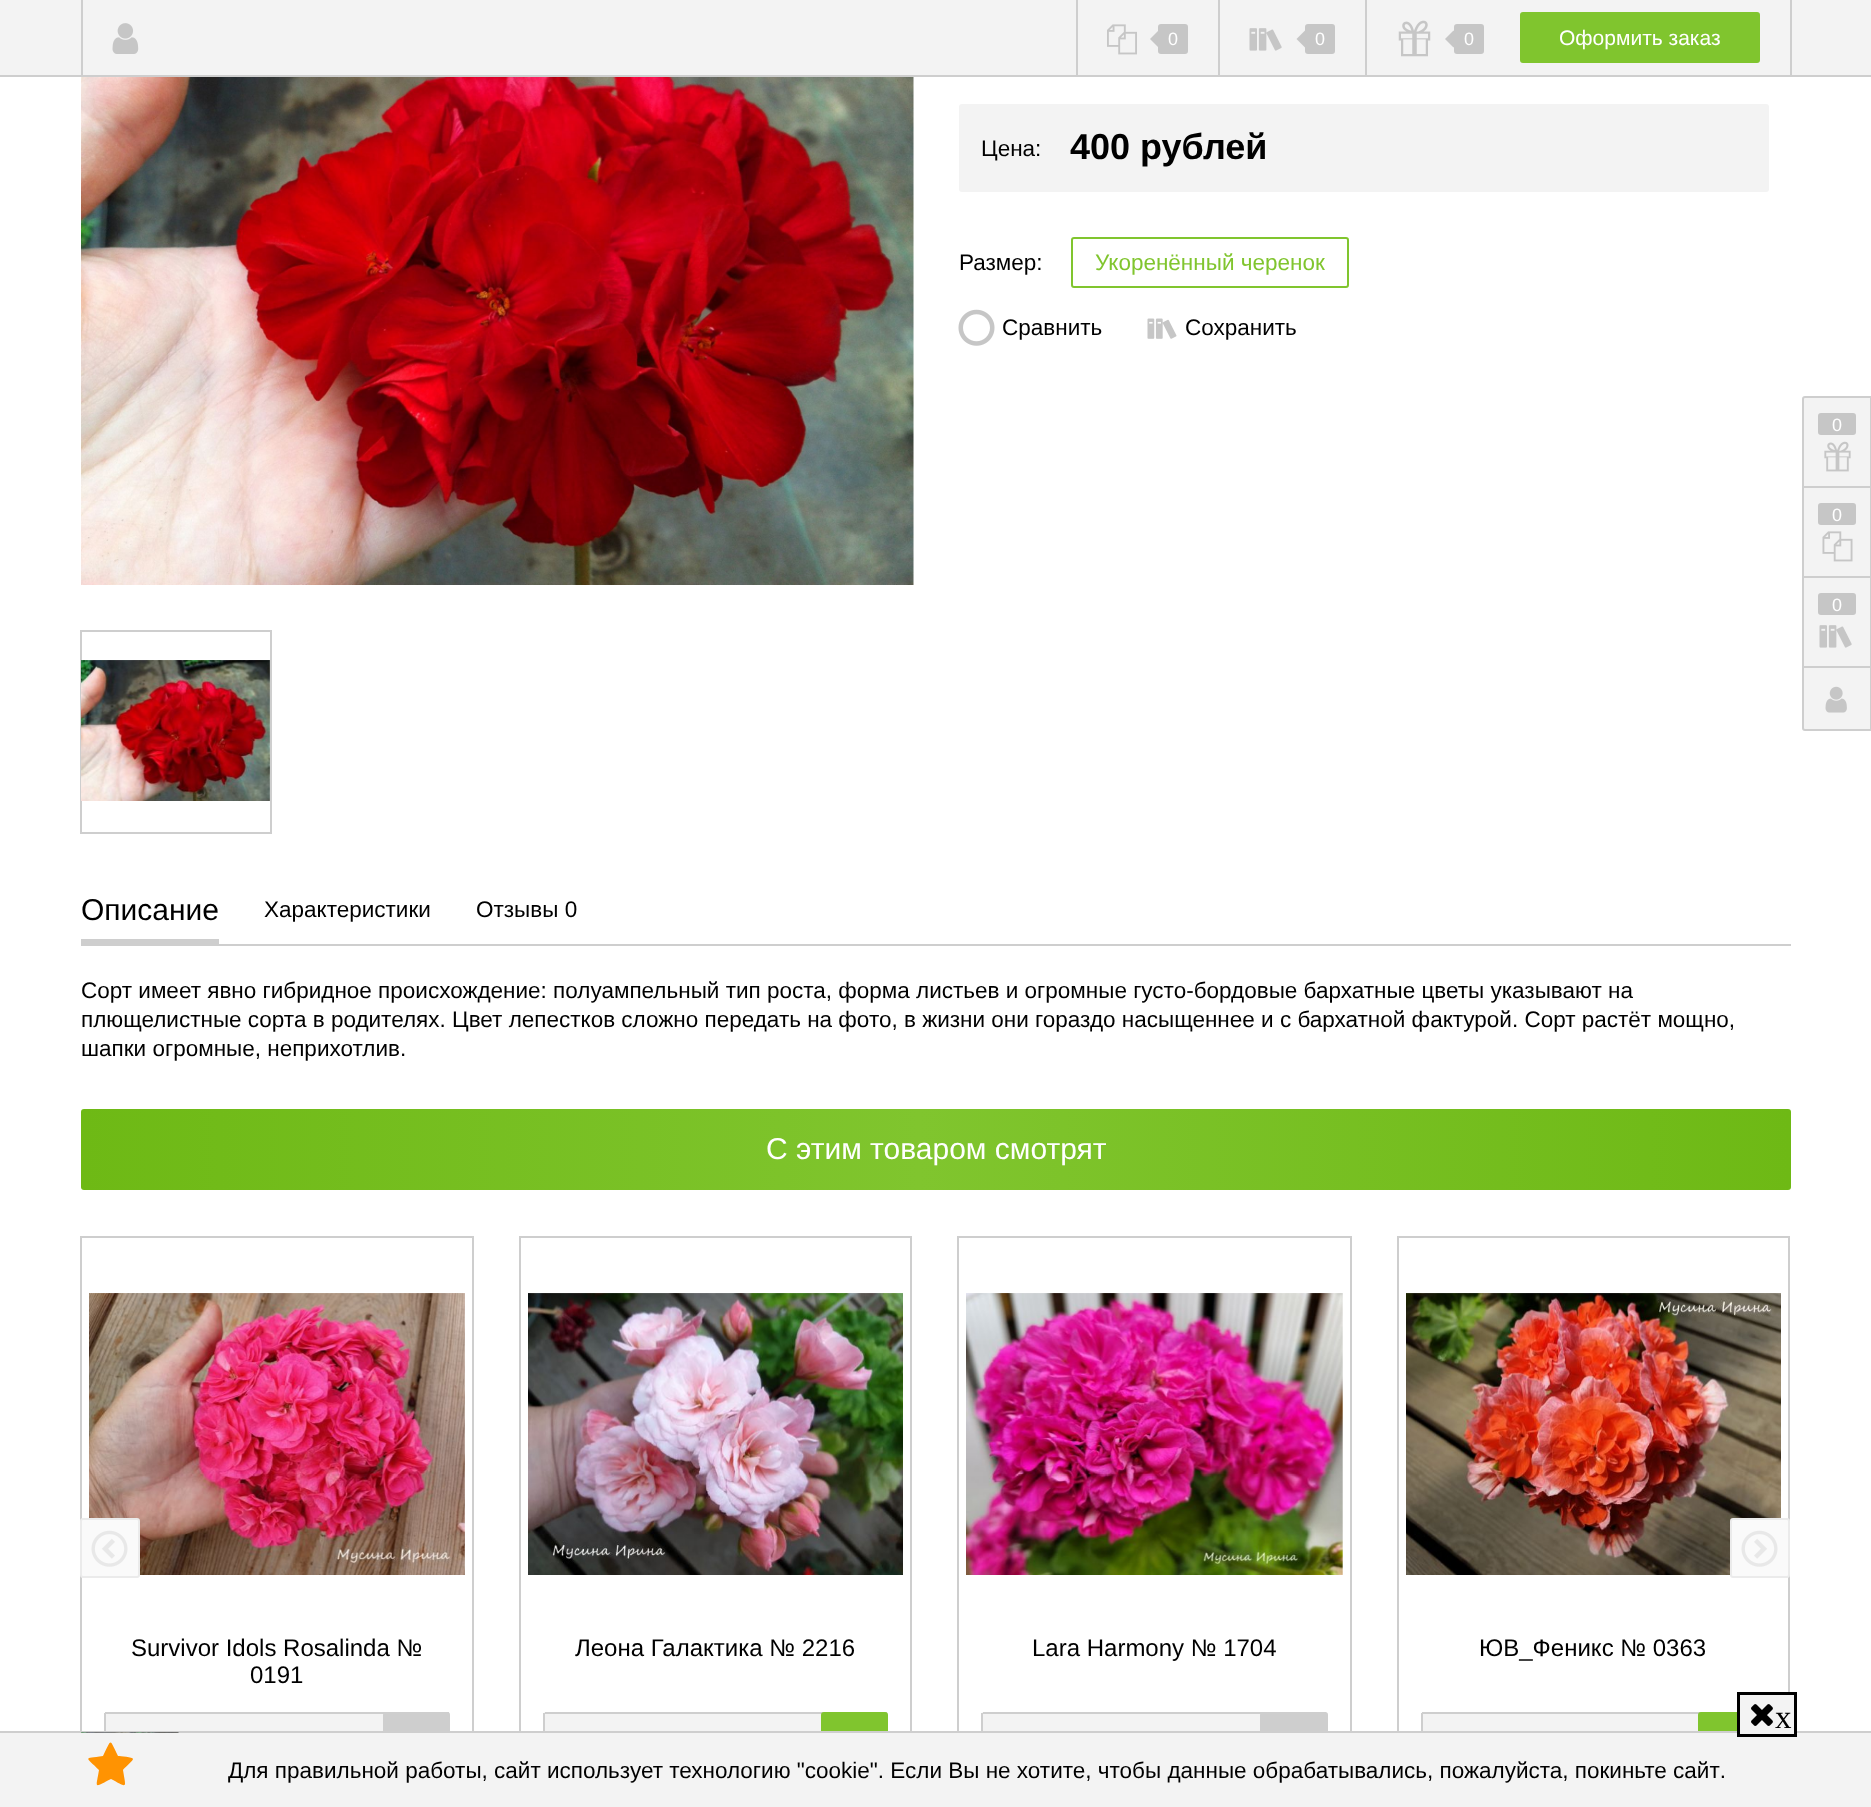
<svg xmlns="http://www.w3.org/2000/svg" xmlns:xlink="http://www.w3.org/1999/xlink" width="1871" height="1807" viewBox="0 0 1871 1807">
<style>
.cls-1{font:18px Arimo;fill:#ffffff}
.cls-2{font:21px Arimo;fill:#ffffff}
.cls-3{font:22.5px Arimo;fill:#000000}
.cls-4{font:bold 36px Arimo;fill:#000000}
.cls-5{font:22.5px Arimo;fill:#80c52e}
.cls-6{font:30px Arimo;fill:#000000}
.cls-7{font:30px Arimo;fill:#ffffff}
.cls-8{font:24px Arimo;fill:#000000}
.cls-9{font:33px Liberation Serif;fill:#000000}
</style>
<defs>
<linearGradient id="g1" gradientUnits="userSpaceOnUse" x1="81" y1="1149" x2="1791" y2="1149"><stop offset="0" stop-color="#6eb915"/><stop offset="0.49" stop-color="#80c52e"/><stop offset="1" stop-color="#6eb915"/></linearGradient>
</defs>
<rect width="100%" height="100%" fill="#ffffff"/>
<rect fill="#f3f3f3" x="0" y="0" width="1871" height="75"/>
<rect fill="#cecece" x="0" y="75" width="1871" height="2"/>
<rect fill="#cecece" x="1076" y="0" width="2" height="75"/>
<rect fill="#cecece" x="81" y="0" width="2" height="75"/>
<image xlink:href="image0.png" x="112" y="23" width="27" height="31"/>
<rect fill="#cecece" x="1218" y="0" width="2" height="75"/>
<image xlink:href="image1.png" x="1107" y="24" width="30" height="31"/>
<rect fill="#c6c6c6" x="1158" y="24" width="30" height="30" rx="3"/>
<path fill="#c6c6c6" d="M1158.5 30.5L1167 39L1158.5 47.5L1150 39Z"/>
<rect fill="#cecece" x="1365" y="0" width="2" height="75"/>
<image xlink:href="image2.png" x="1249" y="28" width="33" height="23"/>
<rect fill="#c6c6c6" x="1305" y="24" width="30" height="30" rx="3"/>
<path fill="#c6c6c6" d="M1305 30.5L1313.5 39L1305 47.5L1296.5 39Z"/>
<rect fill="#cecece" x="1790" y="0" width="2" height="75"/>
<image xlink:href="image3.png" x="1398" y="20" width="33" height="37"/>
<rect fill="#c6c6c6" x="1454" y="24" width="30" height="30" rx="3"/>
<path fill="#c6c6c6" d="M1453.5 30.5L1462 39L1453.5 47.5L1445 39Z"/>
<rect fill="#80c52e" stroke="#80c52e" stroke-width="2" x="1521" y="13" width="238" height="49" rx="2"/>
<image xlink:href="image4.png" x="81" y="77" width="833" height="508"/>
<rect fill="none" stroke="#cecece" stroke-width="2" x="81" y="631" width="190" height="202"/>
<image xlink:href="image5.png" x="81" y="660" width="189" height="141"/>
<rect fill="#f3f3f3" x="959" y="104" width="810" height="88" rx="3"/>
<rect fill="none" stroke="#80c52e" stroke-width="2" x="1072" y="238" width="276" height="49" rx="2"/>
<image xlink:href="image6.png" x="958" y="309" width="37" height="37"/>
<image xlink:href="image7.png" x="1147" y="318" width="30" height="21"/>
<rect fill="#cecece" x="81" y="939" width="138" height="5"/>
<rect fill="#cecece" x="81" y="944" width="1710" height="2"/>
<rect fill="url(#g1)" x="81" y="1109" width="1710" height="81" rx="3"/>
<rect fill="none" stroke="#cecece" stroke-width="2" x="81" y="1237" width="392" height="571"/>
<image xlink:href="image10.png" x="89" y="1293" width="376" height="282"/>
<rect fill="#fafafa" stroke="#ebebeb" stroke-width="2" x="81" y="1519" width="58" height="58" rx="2"/>
<image xlink:href="image8.png" x="91" y="1530" width="37" height="37"/>
<rect fill="none" stroke="#cecece" stroke-width="2" x="1398" y="1237" width="391" height="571"/>
<image xlink:href="image13.png" x="1406" y="1293" width="375" height="282"/>
<rect fill="#fafafa" stroke="#ebebeb" stroke-width="2" x="1731" y="1519" width="58" height="58" rx="2"/>
<image xlink:href="image9.png" x="1741" y="1530" width="37" height="37"/>
<rect fill="#f3f3f3" x="104" y="1712" width="346" height="67" rx="3"/>
<rect fill="#cecece" x="105" y="1712" width="344" height="2"/>
<rect fill="#cecece" x="104" y="1713" width="2" height="18"/>
<rect fill="#cecece" stroke="#cecece" stroke-width="2" x="384" y="1713" width="65" height="65" rx="2"/>
<rect fill="none" stroke="#cecece" stroke-width="2" x="520" y="1237" width="391" height="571"/>
<image xlink:href="image11.png" x="528" y="1293" width="375" height="282"/>
<rect fill="#f3f3f3" x="543" y="1712" width="345" height="67" rx="3"/>
<rect fill="#cecece" x="545" y="1712" width="342" height="2"/>
<rect fill="#cecece" x="543" y="1713" width="2" height="18"/>
<rect fill="#80c52e" stroke="#80c52e" stroke-width="2" x="822" y="1713" width="65" height="65" rx="2"/>
<rect fill="none" stroke="#cecece" stroke-width="2" x="958" y="1237" width="393" height="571"/>
<image xlink:href="image12.png" x="966" y="1293" width="377" height="282"/>
<rect fill="#f3f3f3" x="981" y="1712" width="347" height="67" rx="3"/>
<rect fill="#cecece" x="983" y="1712" width="343" height="2"/>
<rect fill="#cecece" x="981" y="1713" width="2" height="18"/>
<rect fill="#cecece" stroke="#cecece" stroke-width="2" x="1261" y="1713" width="66" height="65" rx="2"/>
<rect fill="#f3f3f3" x="1421" y="1712" width="345" height="67" rx="3"/>
<rect fill="#cecece" x="1422" y="1712" width="279" height="2"/>
<rect fill="#cecece" x="1421" y="1713" width="2" height="18"/>
<rect fill="#80c52e" stroke="#80c52e" stroke-width="2" x="1699" y="1713" width="66" height="65" rx="2"/>
<path fill="#f3f3f3" stroke="#cecece" stroke-width="2" d="M1805 397H1871V730H1805C1804 730 1803 729 1803 728V399C1803 398 1804 397 1805 397Z"/>
<rect fill="#cecece" x="1803" y="486" width="68" height="2"/>
<rect fill="#c6c6c6" x="1818" y="413" width="38" height="22" rx="3"/>
<image xlink:href="image14.png" x="1824" y="441" width="27" height="31"/>
<rect fill="#cecece" x="1803" y="576" width="68" height="2"/>
<rect fill="#c6c6c6" x="1818" y="503" width="38" height="22" rx="3"/>
<image xlink:href="image15.png" x="1822" y="531" width="31" height="31"/>
<rect fill="#cecece" x="1803" y="666" width="68" height="2"/>
<rect fill="#c6c6c6" x="1818" y="593" width="38" height="22" rx="3"/>
<image xlink:href="image2.png" x="1819" y="625" width="33" height="23"/>
<image xlink:href="image16.png" x="1825" y="686" width="22" height="27"/>
<rect fill="none" stroke="#cecece" stroke-width="2" x="1" y="1732" width="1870" height="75"/>
<rect fill="#f3f3f3" x="0" y="1733" width="1871" height="74"/>
<rect fill="#f3f3f3" x="1740" y="1695" width="54" height="38"/>
<rect fill="none" stroke="#000000" stroke-width="3" x="1738.5" y="1693.5" width="57" height="42"/>
<image xlink:href="image17.png" x="1751" y="1704" width="22" height="22"/>
<path fill="#ff9302" d="M133 1759C133 1761 124 1768 123 1770C126 1789 128 1788 111 1779C93 1788 96 1789 99 1770C85 1756 83 1759 103 1756C112 1738 109 1738 118 1756C120 1756 133 1757 133 1759Z"/>
<image xlink:href="image18.png" x="81" y="1732" width="98" height="1"/>
<text class="cls-1" x="1168" y="45">0</text>
<text class="cls-1" x="1315" y="45">0</text>
<text class="cls-1" x="1464" y="45">0</text>
<text class="cls-2" x="1559" y="45">Оформить заказ</text>
<text class="cls-3" x="981" y="156">Цена:</text>
<text class="cls-4" x="1070" y="159">400 рублей</text>
<text class="cls-3" x="959" y="270">Размер:</text>
<text class="cls-5" x="1095" y="270">Укоренённый черенок</text>
<text class="cls-3" x="1002" y="335">Сравнить</text>
<text class="cls-3" x="1185" y="335">Сохранить</text>
<text class="cls-6" x="81" y="920">Описание</text>
<text class="cls-3" x="264" y="917">Характеристики</text>
<text class="cls-3" x="476" y="917">Отзывы 0</text>
<text class="cls-3"><tspan x="81" y="998">Сорт имеет явно гибридное происхождение: полуампельный тип роста, форма листьев и огромные густо-бордовые бархатные цветы указывают на</tspan><tspan x="81" y="1027">плющелистные сорта в родителях. Цвет лепестков сложно передать на фото, в жизни они гораздо насыщеннее и с бархатной фактурой. Сорт растёт мощно,</tspan><tspan x="81" y="1056">шапки огромные, неприхотлив.</tspan></text>
<text class="cls-7" x="766" y="1159">С этим товаром смотрят</text>
<text class="cls-8" x="131" y="1656">Survivor Idols Rosalinda №</text>
<text class="cls-8" x="250" y="1683">0191</text>
<text class="cls-8" x="575" y="1656">Леона Галактика № 2216</text>
<text class="cls-8" x="1032" y="1656">Lara Harmony № 1704</text>
<text class="cls-8" x="1479" y="1656">ЮВ_Феникс № 0363</text>
<text class="cls-1" x="1832" y="431">0</text>
<text class="cls-1" x="1832" y="521">0</text>
<text class="cls-1" x="1832" y="611">0</text>
<text class="cls-9" x="1775" y="1728">x</text>
<text class="cls-3" x="228" y="1778">Для правильной работы, сайт использует технологию "cookie". Если Вы не хотите, чтобы данные обрабатывались, пожалуйста, покиньте сайт.</text>
</svg>
